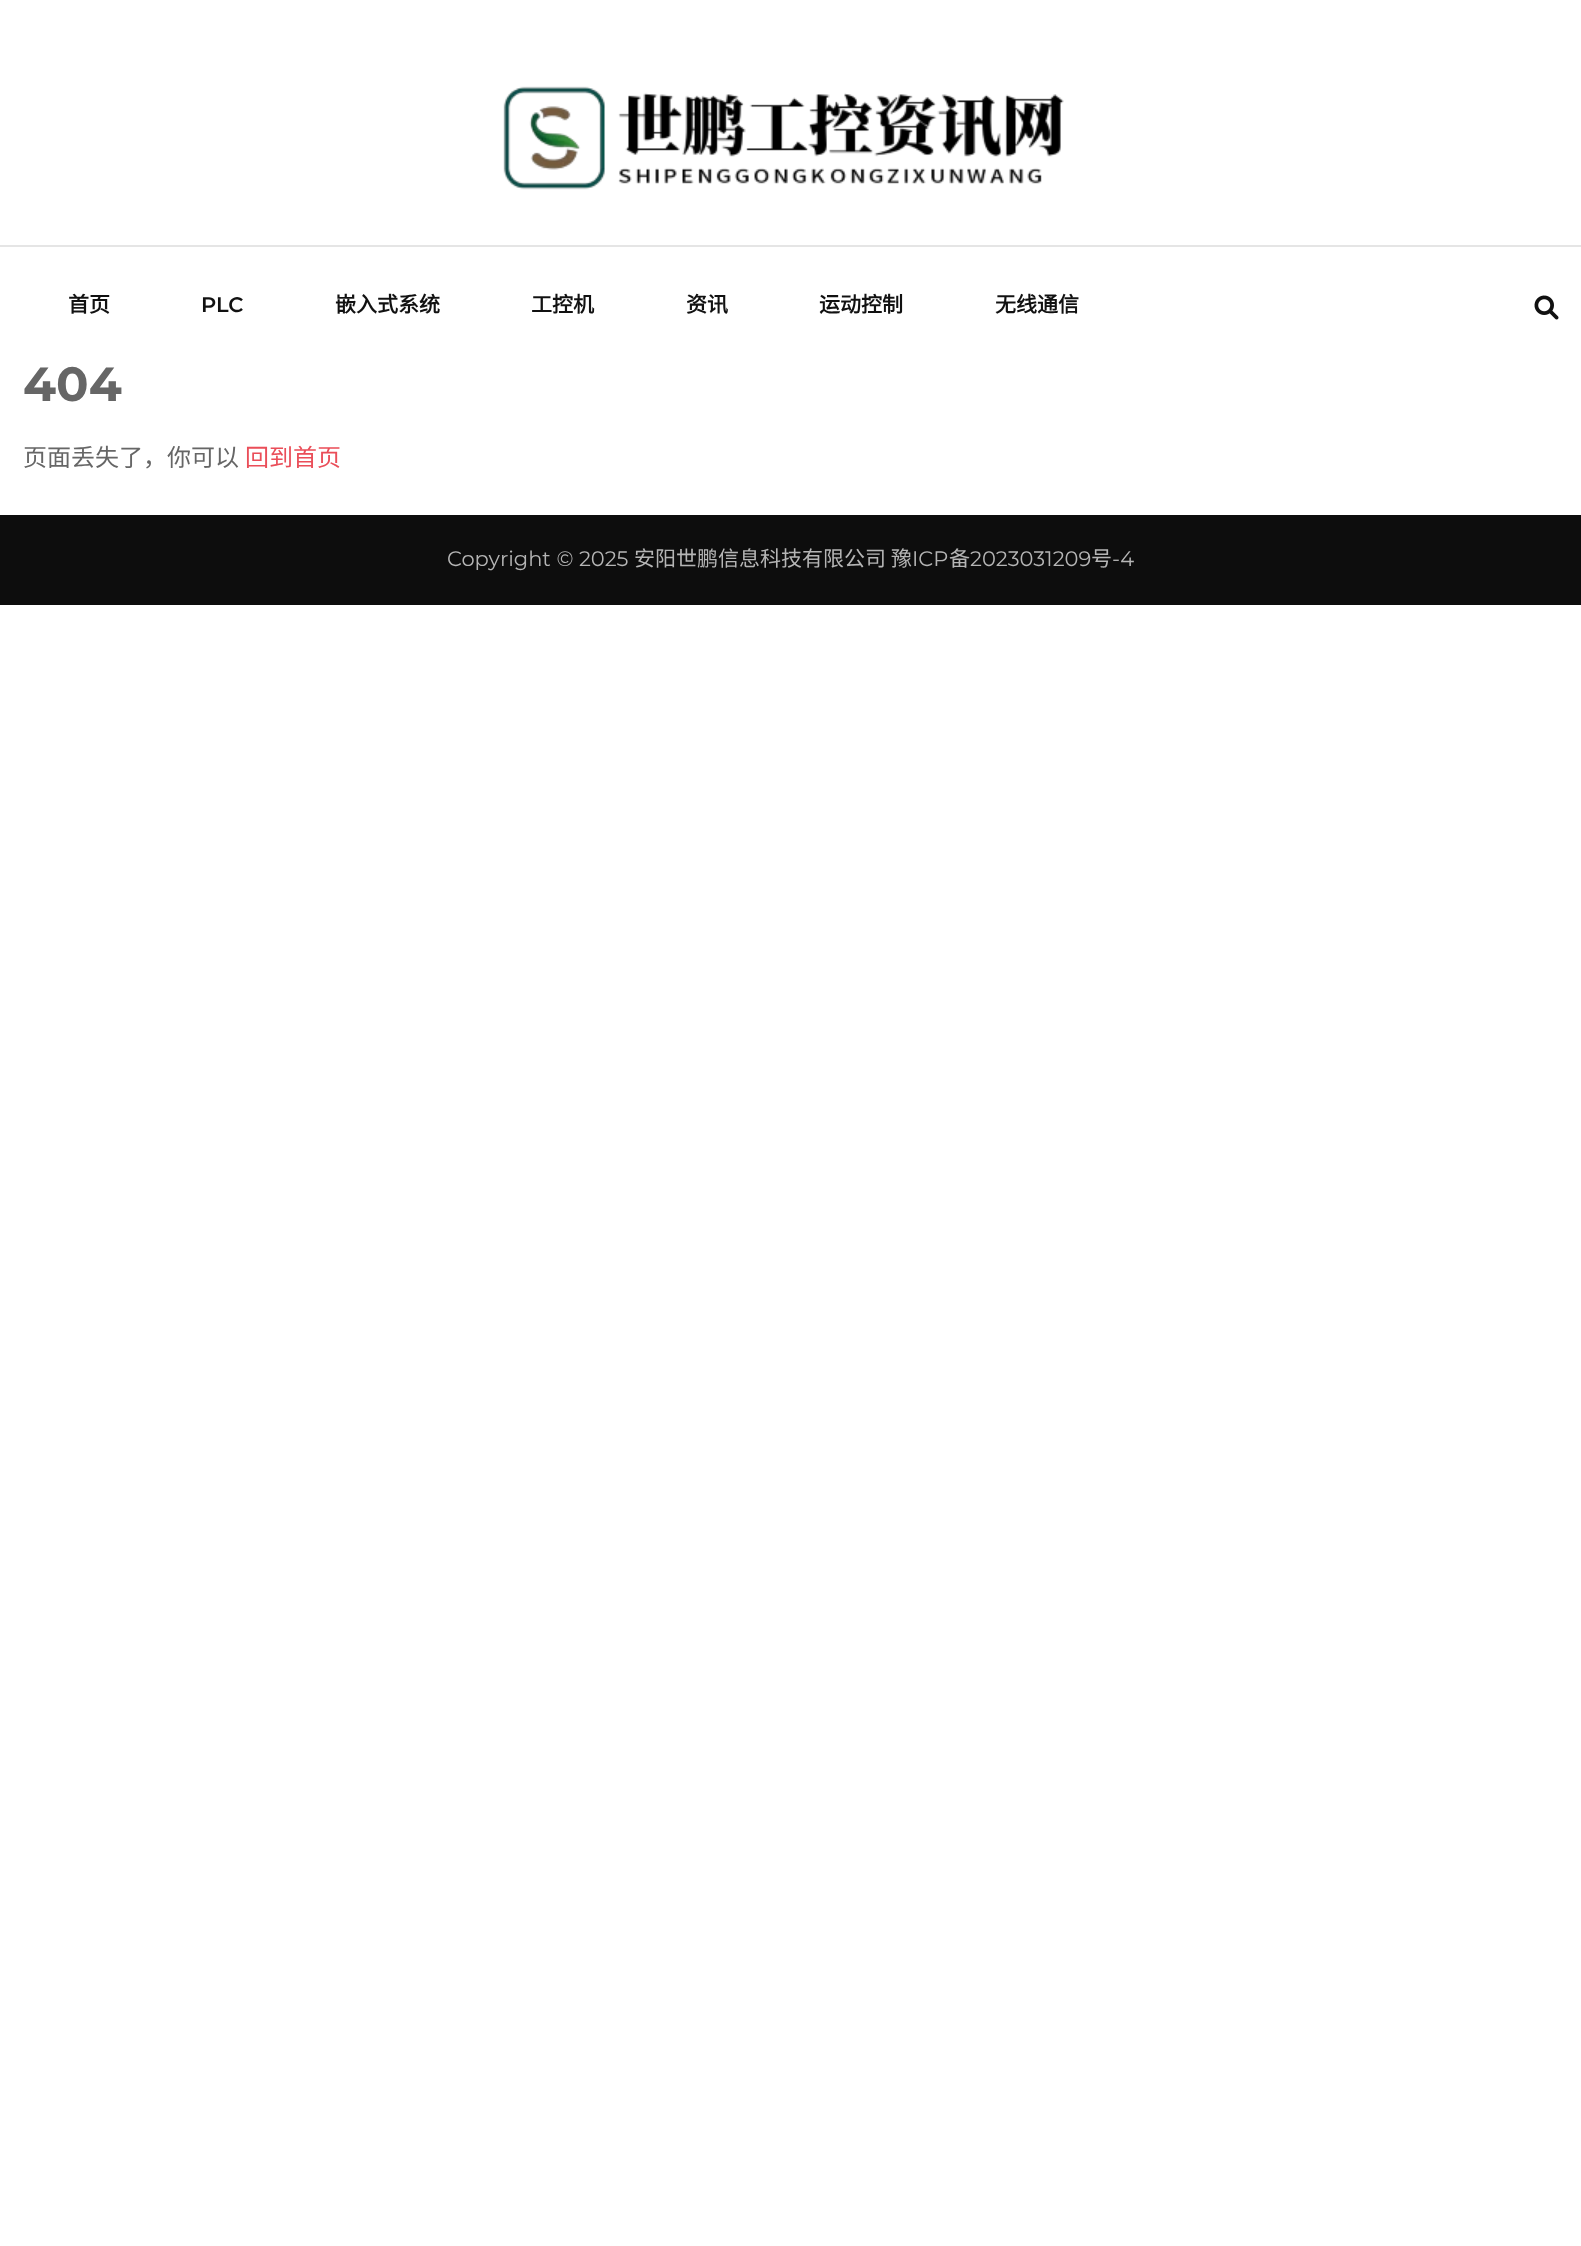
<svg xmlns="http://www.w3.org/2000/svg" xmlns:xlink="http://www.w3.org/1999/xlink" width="1581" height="2246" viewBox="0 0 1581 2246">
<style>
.cls-1{font:bold 21px Noto Sans CJK SC;fill:#111111}
.cls-2{font:600 21px Montserrat;fill:#111111}
.cls-3{font:bold 48px Montserrat;fill:#666666}
.cls-4{font:24px Noto Sans CJK SC;fill:#666666}
.cls-5{font:24px Noto Sans CJK SC;fill:#ea4e59}
.cls-6{font:21px Montserrat;fill:#b5b5b5}
.cls-7{font:21px Noto Sans CJK SC;fill:#b5b5b5}
</style>
<rect width="100%" height="100%" fill="#ffffff"/>
<image xlink:href="image0.png" x="503" y="86" width="561" height="104"/>
<rect fill="#e5e5e5" x="0" y="245" width="1581" height="2"/>
<image xlink:href="image1.png" x="1534" y="295" width="25" height="25"/>
<rect fill="#0d0d0d" x="0" y="515" width="1581" height="90"/>
<text class="cls-1" x="68" y="312">首页</text>
<text class="cls-2" x="201" y="312">PLC</text>
<text class="cls-1" x="335" y="312">嵌入式系统</text>
<text class="cls-1" x="531" y="312">工控机</text>
<text class="cls-1" x="686" y="312">资讯</text>
<text class="cls-1" x="819" y="312">运动控制</text>
<text class="cls-1" x="995" y="312">无线通信</text>
<text class="cls-3" x="23" y="401">404</text>
<text class="cls-4" x="23" y="466">页面丢失了，你可以</text>
<text class="cls-5" x="245" y="466">回到首页</text>
<text class="cls-6" x="447" y="566">Copyright © 2025</text>
<text class="cls-7" x="634" y="566">安阳世鹏信息科技有限公司</text>
<text class="cls-7" x="891" y="566">豫</text>
<text class="cls-6" x="912" y="566">ICP</text>
<text class="cls-7" x="949" y="566">备</text>
<text class="cls-6" x="970" y="566">2023031209</text>
<text class="cls-7" x="1091" y="566">号</text>
<text class="cls-6" x="1112" y="566">-4</text>
</svg>
